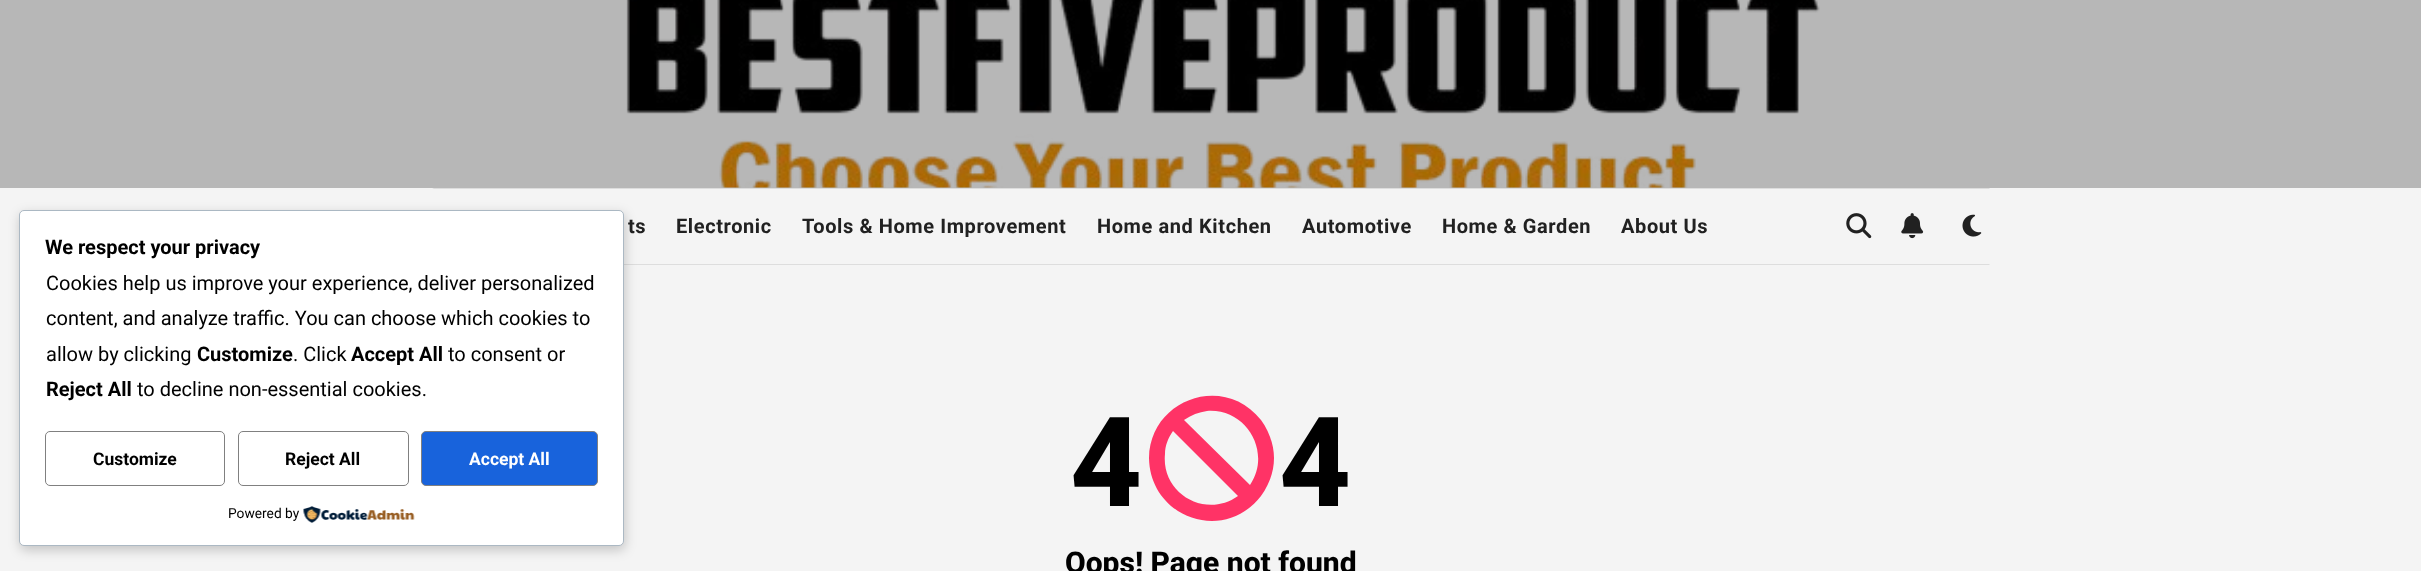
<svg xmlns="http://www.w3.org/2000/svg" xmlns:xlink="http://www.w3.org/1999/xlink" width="2421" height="571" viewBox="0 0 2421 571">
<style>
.cls-1{font:bold 20px Roboto;fill:#000000}
.cls-2{font:20px Roboto;fill:#000000}
.cls-3{font:bold 17.5px Roboto;fill:#000000}
.cls-4{font:bold 17.5px Roboto;fill:#ffffff}
.cls-5{font:13.75px Roboto;fill:#000000}
.cls-6{font:bold 20px Roboto;letter-spacing:0.6px;fill:#212121}
.cls-7{font:800 125px Roboto;fill:#000000}
.cls-8{font:800 30px Roboto;fill:#000000}
</style>
<rect width="100%" height="100%" fill="#f4f4f4"/>
<rect fill="#b7b7b7" x="0" y="0" width="2421" height="188"/>
<path fill="#dddddd" d="M1990 265H432L434 264H1989Z"/>
<rect fill="#000000" fill-opacity="0.2" filter="blur(6px)" x="20" y="214" width="605" height="336" rx="5"/>
<rect fill="#ffffff" stroke="#abb8c3" x="19.5" y="210.5" width="604" height="335" rx="4.5"/>
<rect fill="none" stroke="#808080" x="45.5" y="431.5" width="179" height="54" rx="4.5"/>
<rect fill="none" stroke="#808080" x="238.5" y="431.5" width="170" height="54" rx="4.5"/>
<rect fill="#1863dc" stroke="#808080" x="421.5" y="431.5" width="176" height="54" rx="4.5"/>
<image xlink:href="image0.png" x="303" y="506" width="112" height="17"/>
<image xlink:href="image1.png" x="626" y="0" width="1194" height="188"/>
<path fill="#dddddd" d="M432 188H1990L1989 189H434Z"/>
<image xlink:href="image2.png" x="1846" y="213" width="26" height="26"/>
<image xlink:href="image3.png" x="1901" y="213" width="23" height="26"/>
<image xlink:href="image4.png" x="1962" y="214" width="20" height="23"/>
<path fill="#ff3366" d="M1238 496L1173 431C1168 438 1165 446 1165 454C1161 494 1206 519 1238 496ZM1250 485C1272 453 1247 408 1207 411C1199 412 1191 415 1184 420ZM1149 458C1150 399 1224 373 1261 420C1269 431 1274 445 1274 458C1274 472 1269 485 1261 496C1224 544 1150 518 1149 458Z"/>
<text class="cls-1" x="45" y="254">We respect your privacy</text>
<text class="cls-2"><tspan x="46" y="290">Cookies help us improve your experience, deliver personalized</tspan><tspan x="46" y="325">content, and analyze traffic. You can choose which cookies to</tspan><tspan x="46" y="361">allow by clicking</tspan></text>
<text class="cls-1" x="197" y="361">Customize</text>
<text class="cls-2" x="293" y="361">. Click</text>
<text class="cls-1" x="351" y="361">Accept All</text>
<text class="cls-2" x="448" y="361">to consent or</text>
<text class="cls-1" x="46" y="396">Reject All</text>
<text class="cls-2" x="137" y="396">to decline non-essential cookies.</text>
<text class="cls-3" x="93" y="465">Customize</text>
<text class="cls-3" x="285" y="465">Reject All</text>
<text class="cls-4" x="469" y="465">Accept All</text>
<text class="cls-5" x="228" y="518">Powered by</text>
<text class="cls-6" x="628" y="233">ts</text>
<text class="cls-6" x="676" y="233">Electronic</text>
<text class="cls-6" x="802" y="233">Tools &amp; Home Improvement</text>
<text class="cls-6" x="1097" y="233">Home and Kitchen</text>
<text class="cls-6" x="1302" y="233">Automotive</text>
<text class="cls-6" x="1442" y="233">Home &amp; Garden</text>
<text class="cls-6" x="1621" y="233">About Us</text>
<text class="cls-7" x="1070" y="506">4</text>
<text class="cls-7" x="1279" y="506">4</text>
<text class="cls-8" x="1065" y="573">Oops! Page not found</text>
</svg>
